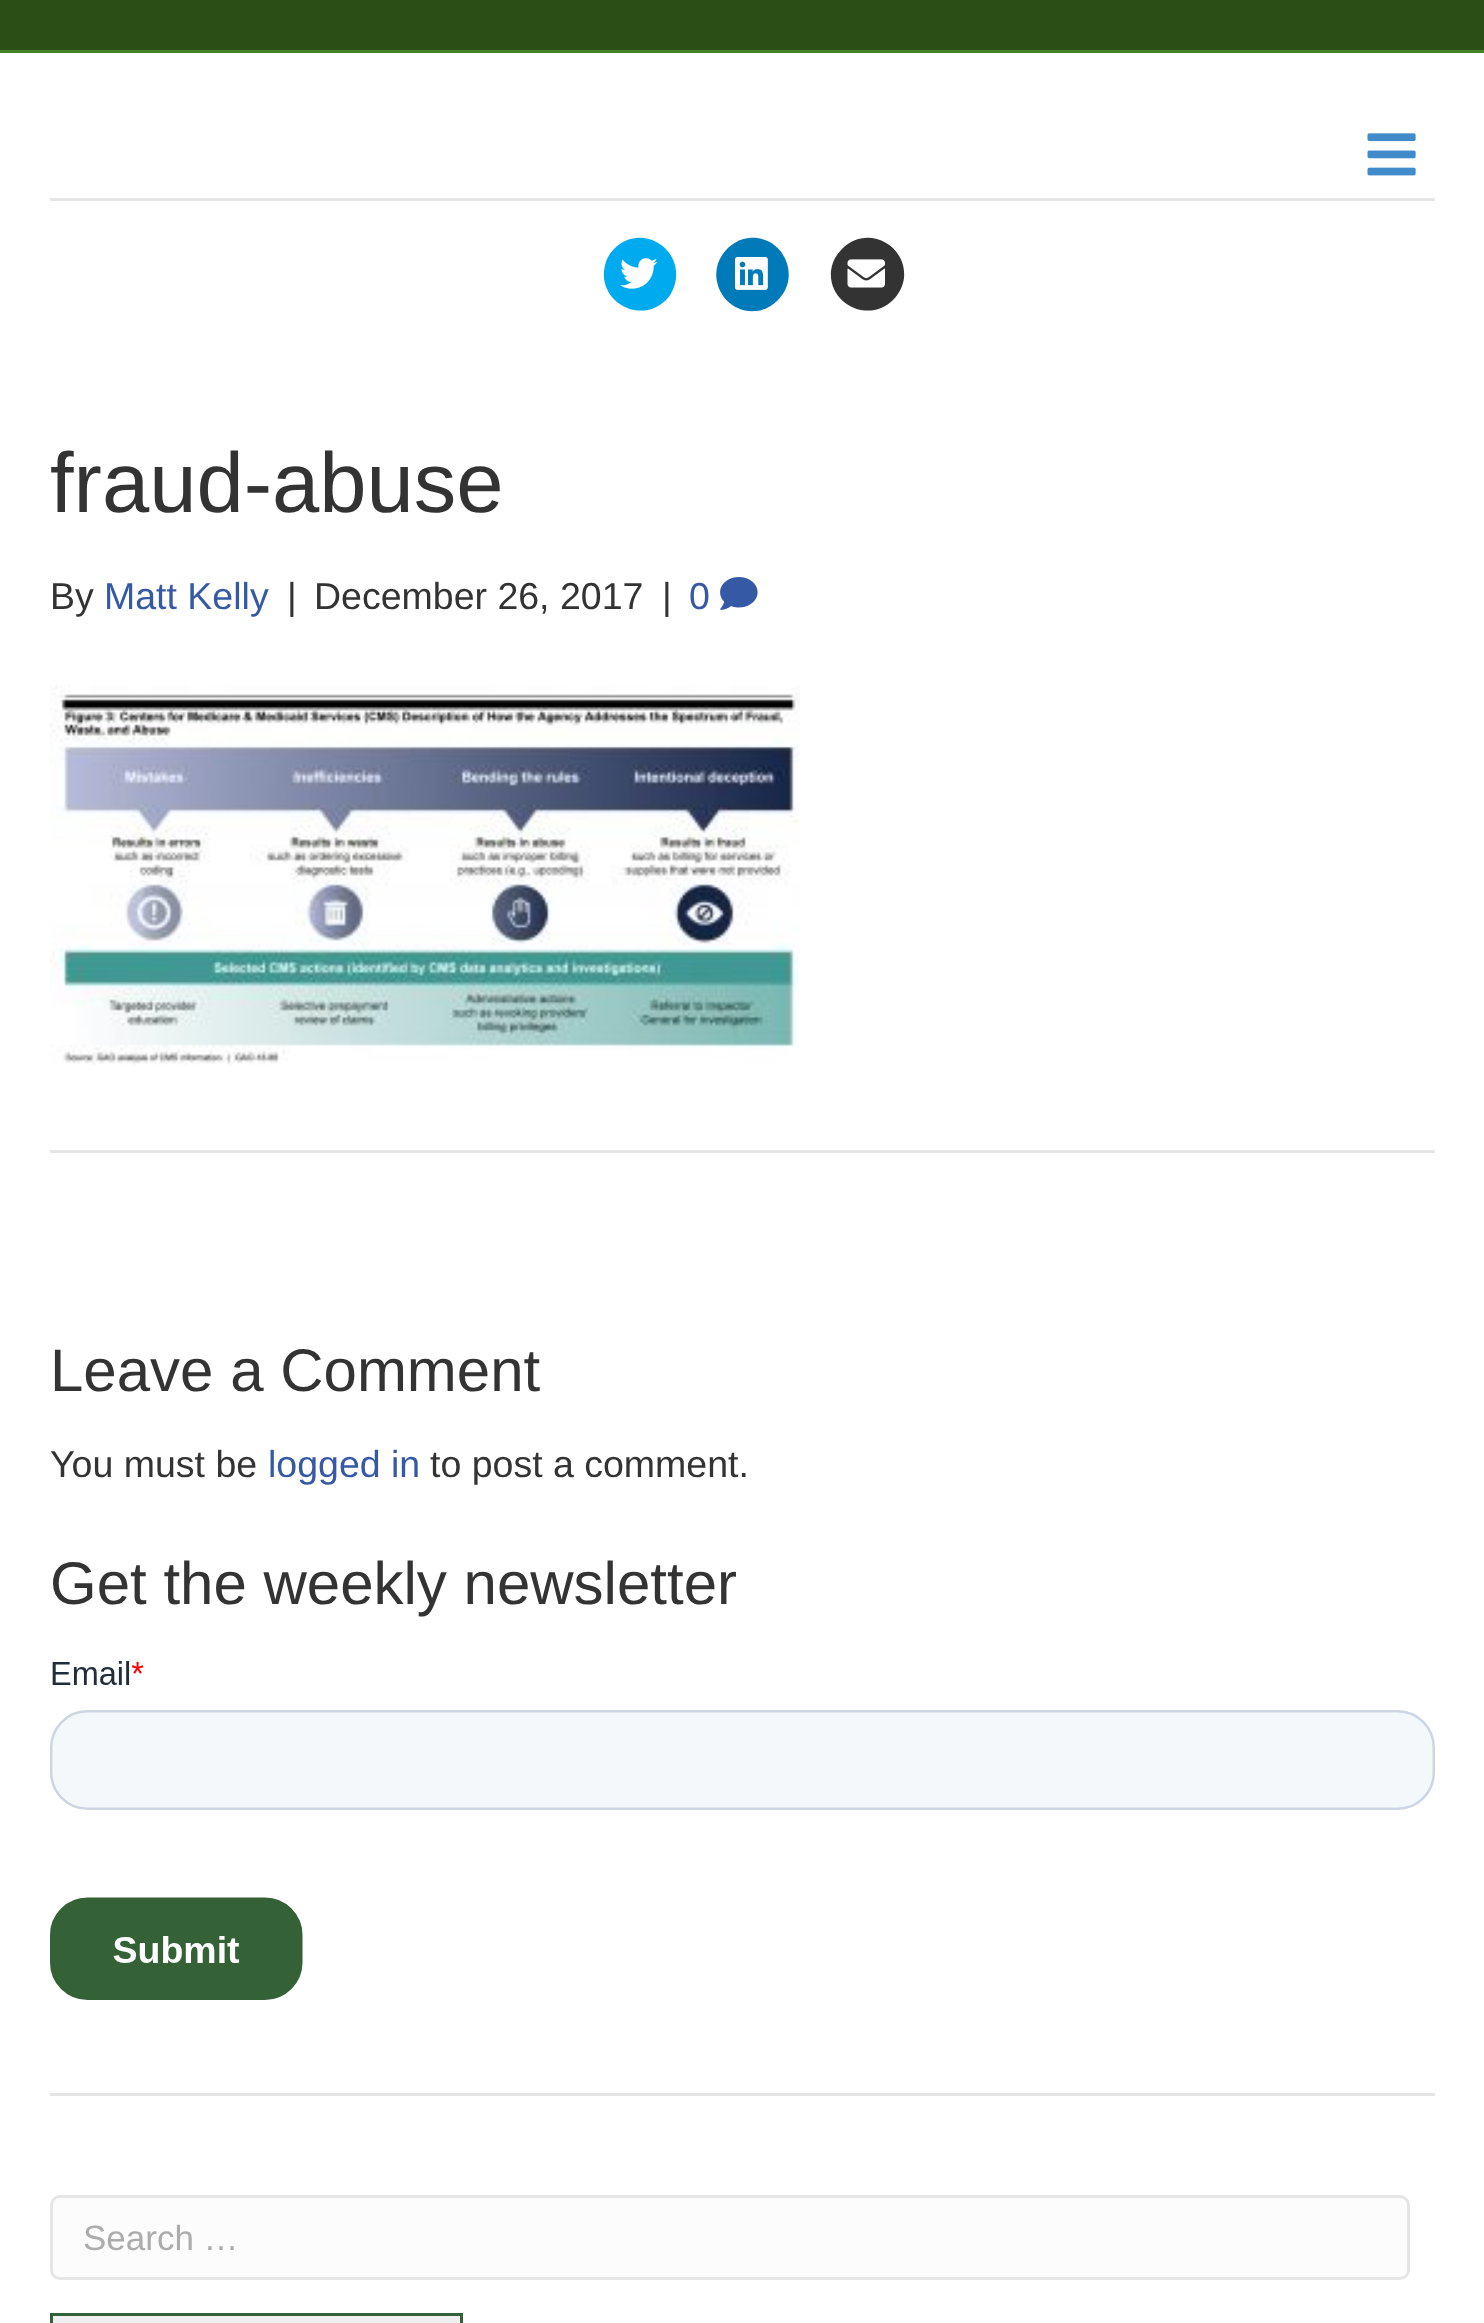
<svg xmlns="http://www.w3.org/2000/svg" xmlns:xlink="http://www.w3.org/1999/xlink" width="1484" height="2323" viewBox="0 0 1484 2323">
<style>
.cls-1{font:85px Liberation Sans;fill:#333333}
.cls-2{font:37.5px Liberation Sans;fill:#333333}
.cls-3{font:37.5px Liberation Sans;fill:#3659a5}
.cls-4{font:60px Liberation Sans;fill:#333333}
.cls-5{font:35px Liberation Sans;fill:#acacac}
</style>
<rect width="100%" height="100%" fill="#2a4f16"/>
<rect fill="#468324" x="0" y="50" width="1484" height="3"/>
<rect fill="#ffffff" x="0" y="53" width="1484" height="2270"/>
<image xlink:href="image0.png" x="1367" y="133" width="49" height="43"/>
<rect fill="#e6e6e6" x="50" y="198" width="1385" height="3"/>
<path fill="#00aaef" d="M614 249C638 224 679 244 676 278C675 286 672 294 666 300C642 324 601 304 604 271C605 262 608 255 614 249Z"/>
<image xlink:href="image1.png" x="620" y="258" width="38" height="31"/>
<path fill="#007ab8" d="M727 249C733 243 740 239 749 238C783 235 802 276 778 300C772 306 765 310 756 311C722 314 703 273 727 249Z"/>
<image xlink:href="image2.png" x="735" y="257" width="33" height="33"/>
<path fill="#333333" d="M842 249C866 224 907 244 904 278C903 286 899 294 893 300C869 324 828 304 831 271C832 262 836 255 842 249Z"/>
<image xlink:href="image3.png" x="847" y="259" width="38" height="29"/>
<image xlink:href="image4.png" x="720" y="577" width="38" height="33"/>
<image xlink:href="image5.png" x="50" y="685" width="750" height="380"/>
<rect fill="#e6e6e6" x="50" y="1150" width="1385" height="3"/>
<rect fill="#e5e5e5" x="50" y="2093" width="1385" height="3"/>
<image xlink:href="image6.png" x="50" y="1661" width="1385" height="339"/>
<rect fill="#fcfcfc" stroke="#e6e6e6" stroke-width="3" x="51.5" y="2196.5" width="1357" height="82" rx="8.5"/>
<rect fill="#efefef" stroke="#346136" stroke-width="3" x="51.5" y="2314.5" width="410" height="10"/>
<text class="cls-1" x="50" y="512">fraud-abuse</text>
<text class="cls-2" x="50" y="609">By</text>
<text class="cls-3" x="104" y="609">Matt Kelly</text>
<text class="cls-2" x="287" y="609">|</text>
<text class="cls-2" x="314" y="609">December 26, 2017</text>
<text class="cls-2" x="662" y="609">|</text>
<text class="cls-3" x="689" y="609">0</text>
<text class="cls-4" x="50" y="1391">Leave a Comment</text>
<text class="cls-2" x="50" y="1477">You must be</text>
<text class="cls-3" x="268" y="1477">logged in</text>
<text class="cls-2" x="430" y="1477">to post a comment.</text>
<text class="cls-4" x="50" y="1604">Get the weekly newsletter</text>
<text class="cls-5" x="83" y="2250">Search …</text>
</svg>
